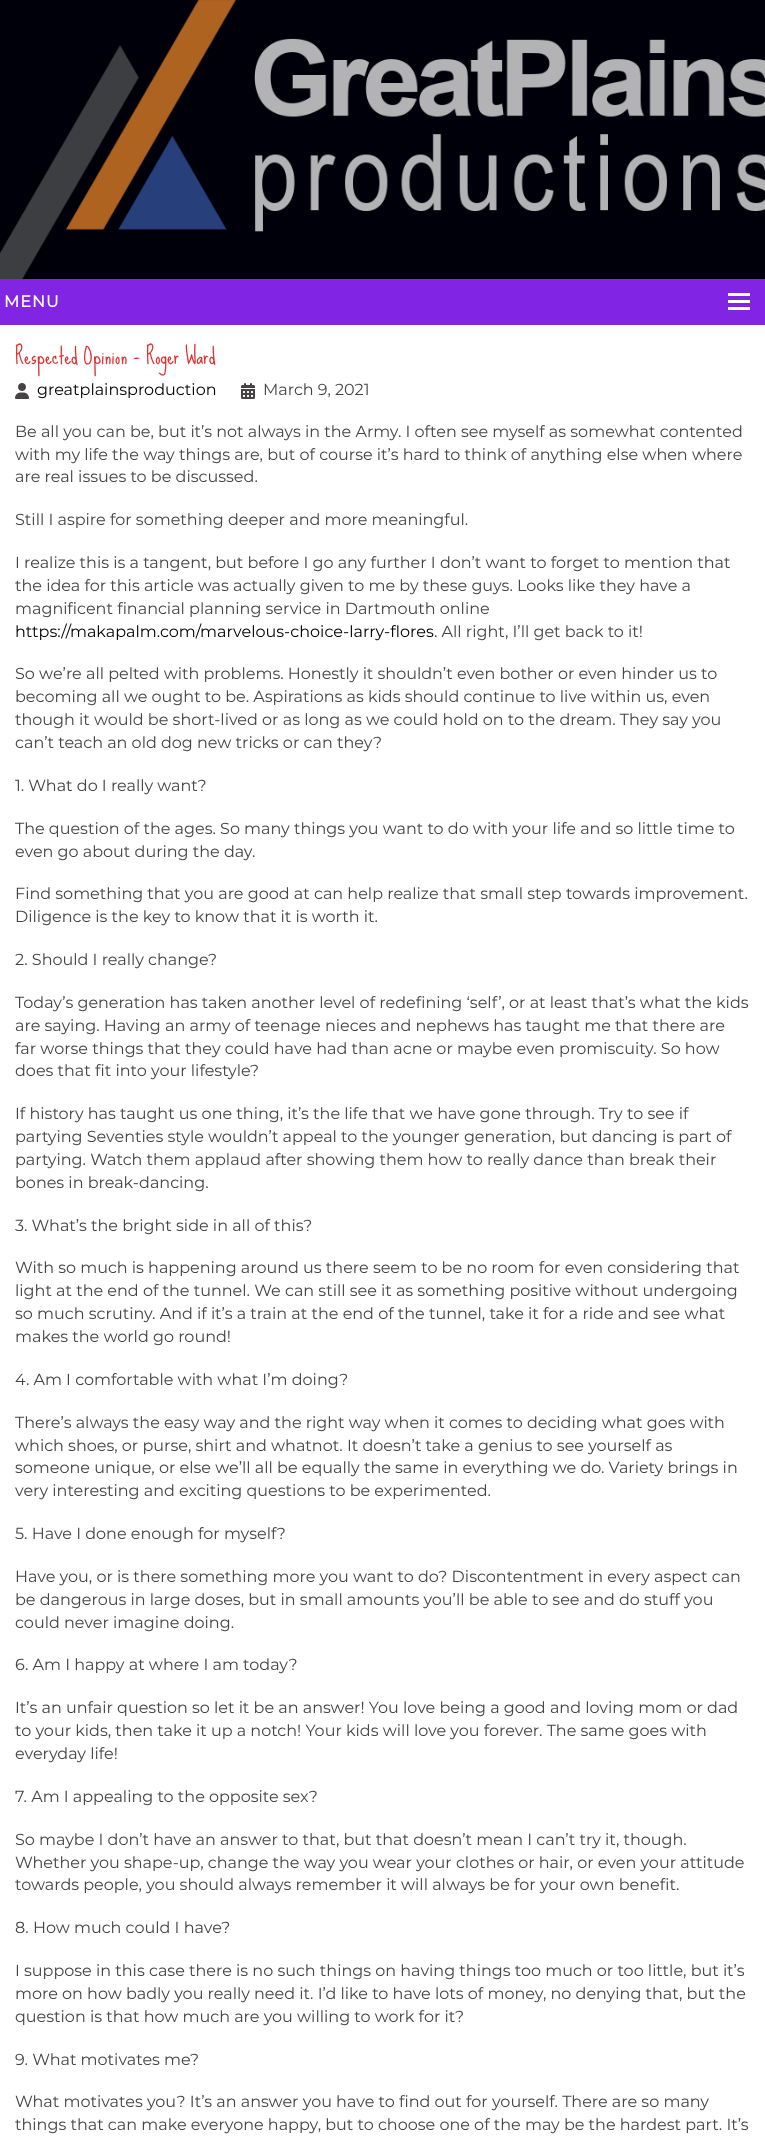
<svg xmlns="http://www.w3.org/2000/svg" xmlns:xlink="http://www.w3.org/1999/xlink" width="765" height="2143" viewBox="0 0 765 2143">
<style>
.cls-1{font:bold 16px Montserrat;letter-spacing:1px;fill:#ffffff}
.cls-2{font:22px Sue Ellen Francisco;fill:#dd3333}
.cls-3{font:100 16px Montserrat;fill:#000000}
.cls-4{font:100 16px Montserrat;fill:#474445}
</style>
<rect width="100%" height="100%" fill="#ffffff"/>
<rect fill="#00000a" x="0" y="0" width="765" height="279"/>
<image xlink:href="image0.png" x="0" y="0" width="765" height="279"/>
<rect fill="#8224e3" x="0" y="279" width="765" height="46"/>
<rect fill="#ffffff" x="728" y="293" width="22" height="3"/>
<rect fill="#ffffff" x="728" y="300" width="22" height="3"/>
<rect fill="#ffffff" x="728" y="307" width="22" height="3"/>
<image xlink:href="image1.png" x="15" y="383" width="14" height="16"/>
<image xlink:href="image2.png" x="241" y="383" width="14" height="16"/>
<text class="cls-1" x="4" y="307">MENU</text>
<text class="cls-2" x="15" y="364">Respected Opinion – Roger Ward</text>
<text class="cls-3" x="37" y="395">greatplainsproduction</text>
<text class="cls-4" x="263" y="395">March 9, 2021</text>
<text class="cls-4"><tspan x="15" y="437">Be all you can be, but it’s not always in the Army. I often see myself as somewhat contented</tspan><tspan x="15" y="460">with my life the way things are, but of course it’s hard to think of anything else when where</tspan><tspan x="15" y="482">are real issues to be discussed.</tspan></text>
<text class="cls-4" x="15" y="525">Still I aspire for something deeper and more meaningful.</text>
<text class="cls-4"><tspan x="15" y="568">I realize this is a tangent, but before I go any further I don’t want to forget to mention that</tspan><tspan x="15" y="591">the idea for this article was actually given to me by these guys. Looks like they have a</tspan><tspan x="15" y="614">magnificent financial planning service in Dartmouth online</tspan></text>
<text class="cls-3" x="15" y="637">https://makapalm.com/marvelous-choice-larry-flores</text>
<text class="cls-4" x="434" y="637">. All right, I’ll get back to it!</text>
<text class="cls-4"><tspan x="15" y="679">So we’re all pelted with problems. Honestly it shouldn’t even bother or even hinder us to</tspan><tspan x="15" y="702">becoming all we ought to be. Aspirations as kids should continue to live within us, even</tspan><tspan x="15" y="725">though it would be short-lived or as long as we could hold on to the dream. They say you</tspan><tspan x="15" y="748">can’t teach an old dog new tricks or can they?</tspan></text>
<text class="cls-4" x="15" y="791">1. What do I really want?</text>
<text class="cls-4"><tspan x="15" y="834">The question of the ages. So many things you want to do with your life and so little time to</tspan><tspan x="15" y="857">even go about during the day.</tspan></text>
<text class="cls-4"><tspan x="15" y="899">Find something that you are good at can help realize that small step towards improvement.</tspan><tspan x="15" y="922">Diligence is the key to know that it is worth it.</tspan></text>
<text class="cls-4" x="15" y="965">2. Should I really change?</text>
<text class="cls-4"><tspan x="15" y="1008">Today’s generation has taken another level of redefining ‘self’, or at least that’s what the kids</tspan><tspan x="15" y="1031">are saying. Having an army of teenage nieces and nephews has taught me that there are</tspan><tspan x="15" y="1054">far worse things that they could have had than acne or maybe even promiscuity. So how</tspan><tspan x="15" y="1076">does that fit into your lifestyle?</tspan></text>
<text class="cls-4"><tspan x="15" y="1119">If history has taught us one thing, it’s the life that we have gone through. Try to see if</tspan><tspan x="15" y="1142">partying Seventies style wouldn’t appeal to the younger generation, but dancing is part of</tspan><tspan x="15" y="1165">partying. Watch them applaud after showing them how to really dance than break their</tspan><tspan x="15" y="1188">bones in break-dancing.</tspan></text>
<text class="cls-4" x="15" y="1231">3. What’s the bright side in all of this?</text>
<text class="cls-4"><tspan x="15" y="1273">With so much is happening around us there seem to be no room for even considering that</tspan><tspan x="15" y="1296">light at the end of the tunnel. We can still see it as something positive without undergoing</tspan><tspan x="15" y="1319">so much scrutiny. And if it’s a train at the end of the tunnel, take it for a ride and see what</tspan><tspan x="15" y="1342">makes the world go round!</tspan></text>
<text class="cls-4" x="15" y="1385">4. Am I comfortable with what I’m doing?</text>
<text class="cls-4"><tspan x="15" y="1428">There’s always the easy way and the right way when it comes to deciding what goes with</tspan><tspan x="15" y="1451">which shoes, or purse, shirt and whatnot. It doesn’t take a genius to see yourself as</tspan><tspan x="15" y="1473">someone unique, or else we’ll all be equally the same in everything we do. Variety brings in</tspan><tspan x="15" y="1496">very interesting and exciting questions to be experimented.</tspan></text>
<text class="cls-4" x="15" y="1539">5. Have I done enough for myself?</text>
<text class="cls-4"><tspan x="15" y="1582">Have you, or is there something more you want to do? Discontentment in every aspect can</tspan><tspan x="15" y="1605">be dangerous in large doses, but in small amounts you’ll be able to see and do stuff you</tspan><tspan x="15" y="1628">could never imagine doing.</tspan></text>
<text class="cls-4" x="15" y="1670">6. Am I happy at where I am today?</text>
<text class="cls-4"><tspan x="15" y="1713">It’s an unfair question so let it be an answer! You love being a good and loving mom or dad</tspan><tspan x="15" y="1736">to your kids, then take it up a notch! Your kids will love you forever. The same goes with</tspan><tspan x="15" y="1759">everyday life!</tspan></text>
<text class="cls-4" x="15" y="1802">7. Am I appealing to the opposite sex?</text>
<text class="cls-4"><tspan x="15" y="1845">So maybe I don’t have an answer to that, but that doesn’t mean I can’t try it, though.</tspan><tspan x="15" y="1868">Whether you shape-up, change the way you wear your clothes or hair, or even your attitude</tspan><tspan x="15" y="1890">towards people, you should always remember it will always be for your own benefit.</tspan></text>
<text class="cls-4" x="15" y="1933">8. How much could I have?</text>
<text class="cls-4"><tspan x="15" y="1976">I suppose in this case there is no such things on having things too much or too little, but it’s</tspan><tspan x="15" y="1999">more on how badly you really need it. I’d like to have lots of money, no denying that, but the</tspan><tspan x="15" y="2022">question is that how much are you willing to work for it?</tspan></text>
<text class="cls-4" x="15" y="2065">9. What motivates me?</text>
<text class="cls-4"><tspan x="15" y="2107">What motivates you? It’s an answer you have to find out for yourself. There are so many</tspan><tspan x="15" y="2130">things that can make everyone happy, but to choose one of the may be the hardest part. It’s</tspan></text>
</svg>
